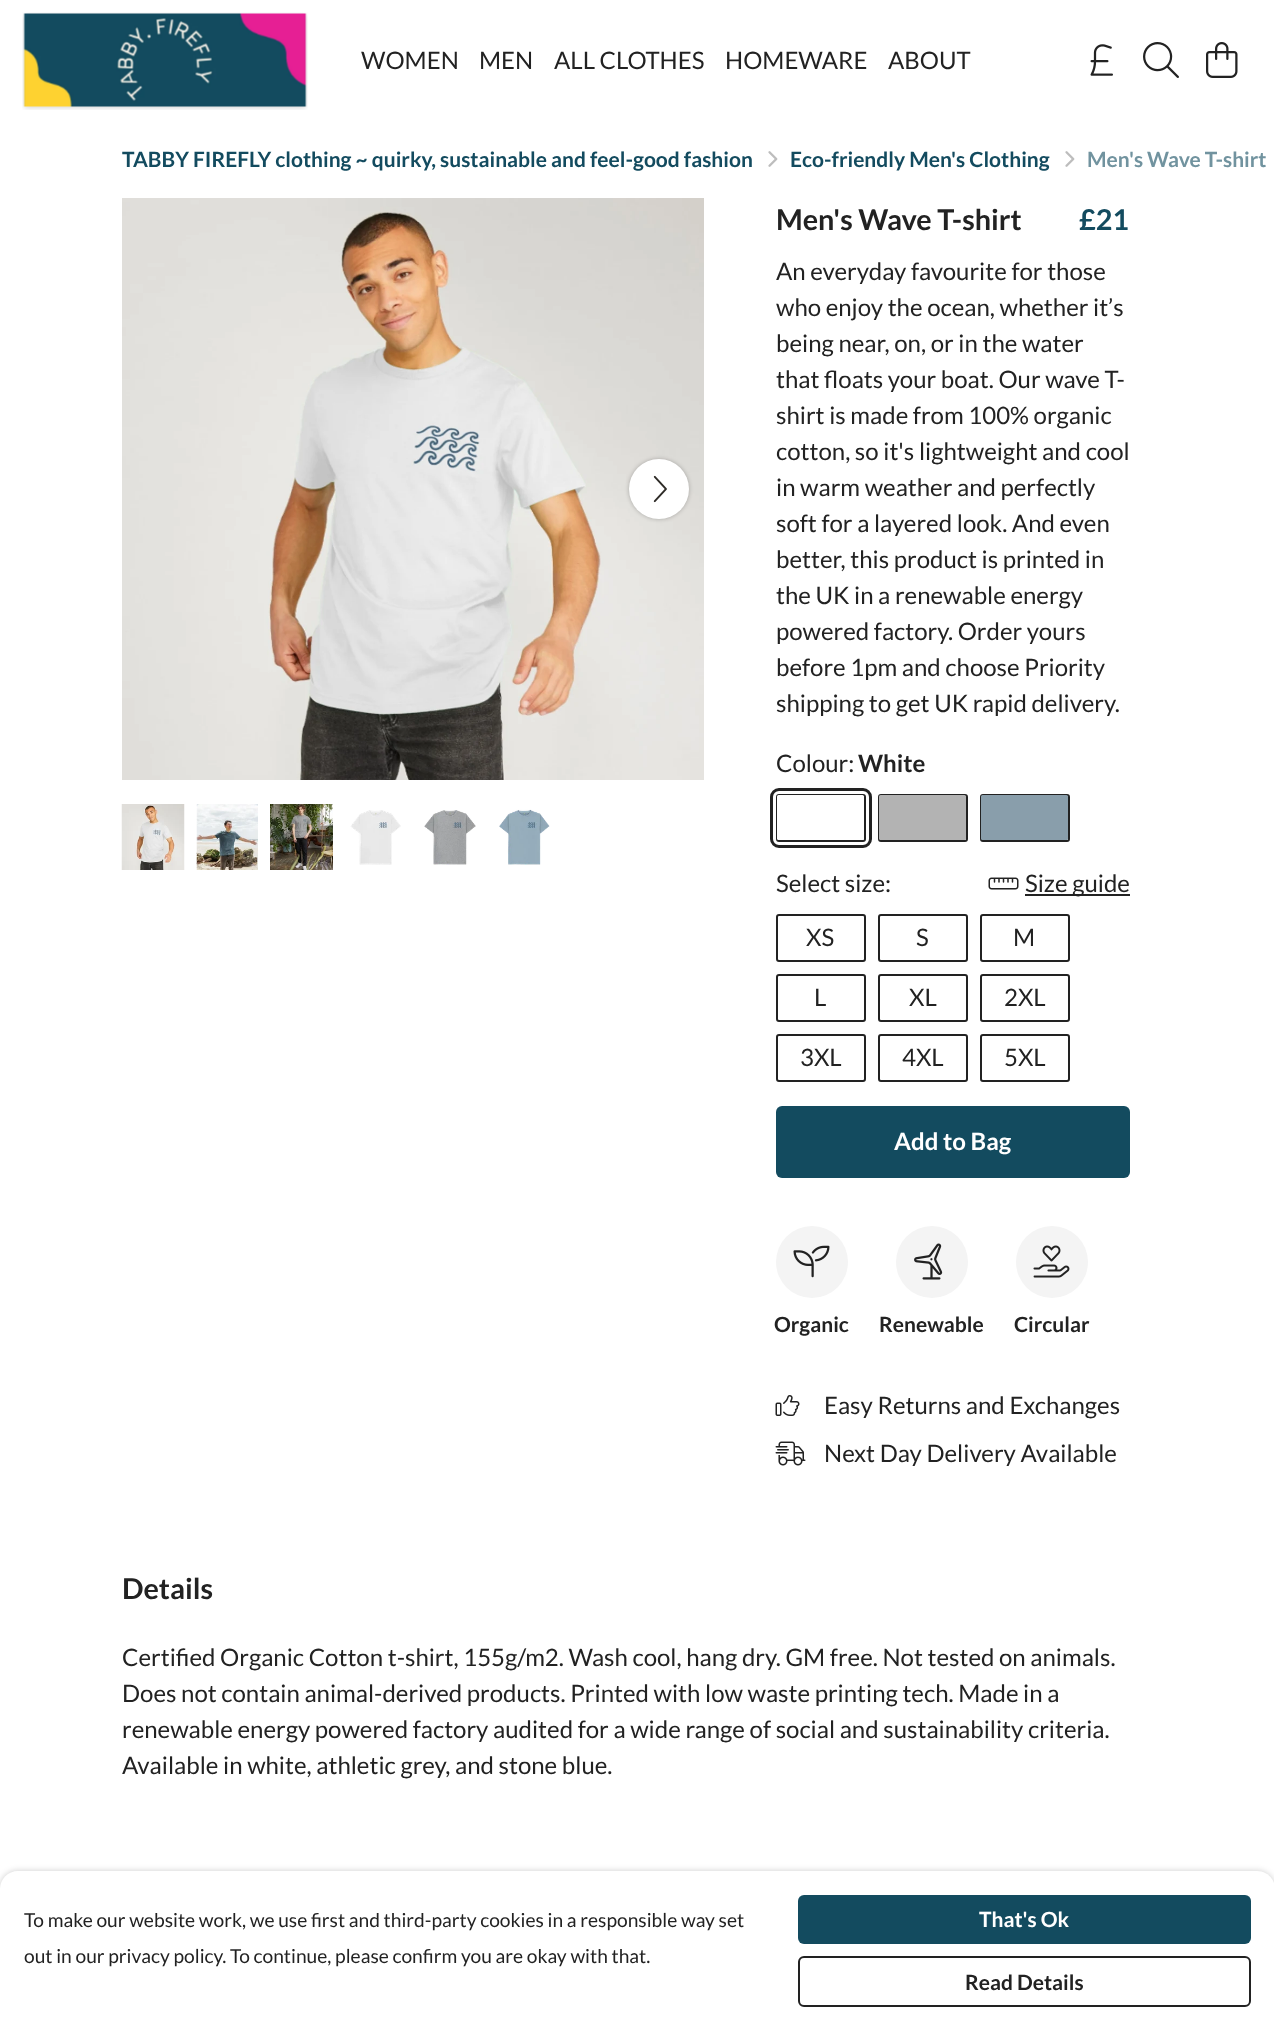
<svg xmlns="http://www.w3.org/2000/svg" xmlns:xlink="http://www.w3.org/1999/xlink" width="1274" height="2030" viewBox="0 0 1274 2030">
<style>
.cls-1{font:24px Lato;fill:#222222}
.cls-2{font:bold 21px Lato;fill:#134b5f}
.cls-3{font:bold 21px Lato;fill:#71939f}
.cls-4{font:bold 28.75px Lato;fill:#222222}
.cls-5{font:bold 28.75px Lato;fill:#134b5f}
.cls-6{font:bold 24px Lato;fill:#222222}
.cls-7{font:bold 24px Lato;fill:#ffffff}
.cls-8{font:bold 21px Lato;fill:#222222}
.cls-9{font:19.2px Lato;fill:#222222}
.cls-10{font:bold 21px Lato;fill:#ffffff}
</style>
<rect width="100%" height="100%" fill="#ffffff"/>
<image xlink:href="image0.png" x="22" y="12" width="286" height="98"/>
<image xlink:href="image1.png" x="1090" y="44" width="23" height="32"/>
<image xlink:href="image2.png" x="1143" y="42" width="36" height="36"/>
<image xlink:href="image3.png" x="1206" y="42" width="32" height="36"/>
<image xlink:href="image4.png" x="768" y="151" width="10" height="16"/>
<image xlink:href="image4.png" x="1065" y="151" width="10" height="16"/>
<image xlink:href="image5.png" x="122" y="198" width="582" height="582"/>
<rect fill="#000000" fill-opacity="0.25" filter="blur(2px)" x="629" y="459" width="60" height="60" rx="30"/>
<circle fill="#ffffff" cx="659" cy="489" r="30"/>
<image xlink:href="image6.png" x="653" y="475" width="14" height="28"/>
<image xlink:href="image7.png" x="121" y="804" width="64" height="66"/>
<image xlink:href="image8.png" x="196" y="804" width="62" height="66"/>
<image xlink:href="image9.png" x="270" y="804" width="63" height="66"/>
<image xlink:href="image10.png" x="350" y="810" width="51" height="55"/>
<image xlink:href="image11.png" x="424" y="810" width="52" height="55"/>
<image xlink:href="image12.png" x="499" y="809" width="51" height="56"/>
<rect fill="none" stroke="#222222" stroke-width="3" x="771.5" y="789.5" width="99" height="57" rx="7.5"/>
<rect fill="none" stroke="#222222" stroke-width="2" x="777" y="795" width="88" height="46" rx="2"/>
<rect fill="#ffffff" x="777" y="795" width="87" height="45" rx="1.5"/>
<rect fill="none" stroke="#222222" stroke-width="2" x="879" y="795" width="88" height="46" rx="2"/>
<rect fill="#b3b3b3" x="879" y="795" width="87" height="45" rx="1.5"/>
<rect fill="none" stroke="#222222" stroke-width="2" x="981" y="795" width="88" height="46" rx="2"/>
<rect fill="#899eab" x="981" y="795" width="87" height="45" rx="1.5"/>
<image xlink:href="image13.png" x="988" y="877" width="31" height="13"/>
<rect fill="#222222" x="1025" y="894" width="105" height="2"/>
<rect fill="none" stroke="#222222" stroke-width="2" x="777" y="915" width="88" height="46" rx="2"/>
<rect fill="none" stroke="#222222" stroke-width="2" x="879" y="915" width="88" height="46" rx="2"/>
<rect fill="none" stroke="#222222" stroke-width="2" x="981" y="915" width="88" height="46" rx="2"/>
<rect fill="none" stroke="#222222" stroke-width="2" x="777" y="975" width="88" height="46" rx="2"/>
<rect fill="none" stroke="#222222" stroke-width="2" x="879" y="975" width="88" height="46" rx="2"/>
<rect fill="none" stroke="#222222" stroke-width="2" x="981" y="975" width="88" height="46" rx="2"/>
<rect fill="none" stroke="#222222" stroke-width="2" x="777" y="1035" width="88" height="46" rx="2"/>
<rect fill="none" stroke="#222222" stroke-width="2" x="879" y="1035" width="88" height="46" rx="2"/>
<rect fill="none" stroke="#222222" stroke-width="2" x="981" y="1035" width="88" height="46" rx="2"/>
<rect fill="#134b5f" x="776" y="1106" width="354" height="72" rx="6"/>
<circle fill="#f4f4f4" cx="812" cy="1262" r="36"/>
<image xlink:href="image14.png" x="793" y="1245" width="37" height="33"/>
<circle fill="#f4f4f4" cx="932" cy="1262" r="36"/>
<image xlink:href="image15.png" x="914" y="1243" width="29" height="37"/>
<circle fill="#f4f4f4" cx="1052" cy="1262" r="36"/>
<image xlink:href="image16.png" x="1033" y="1245" width="37" height="33"/>
<image xlink:href="image17.png" x="775" y="1395" width="25" height="21"/>
<image xlink:href="image18.png" x="775" y="1441" width="31" height="25"/>
<rect fill="#000000" fill-opacity="0.2" filter="blur(3px)" x="0" y="1871" width="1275" height="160" rx="18"/>
<path fill="#ffffff" d="M18 1871H1257C1267 1871 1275 1879 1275 1889V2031H0V1889C0 1879 8 1871 18 1871Z"/>
<rect fill="#134b5f" x="798" y="1895" width="453" height="49" rx="6"/>
<rect fill="none" stroke="#222222" stroke-width="2" x="799" y="1957" width="451" height="49" rx="5"/>
<text class="cls-1" x="361" y="69">WOMEN</text>
<text class="cls-1" x="479" y="69">MEN</text>
<text class="cls-1" x="554" y="69">ALL CLOTHES</text>
<text class="cls-1" x="725" y="69">HOMEWARE</text>
<text class="cls-1" x="888" y="69">ABOUT</text>
<text class="cls-2" x="122" y="167">TABBY FIREFLY clothing ~ quirky, sustainable and feel-good fashion</text>
<text class="cls-2" x="790" y="167">Eco-friendly Men's Clothing</text>
<text class="cls-3" x="1087" y="167">Men's Wave T-shirt</text>
<text class="cls-4" x="776" y="230">Men's Wave T-shirt</text>
<text class="cls-5" x="1079" y="230">£21</text>
<text class="cls-1"><tspan x="776" y="280">An everyday favourite for those</tspan><tspan x="776" y="316">who enjoy the ocean, whether it’s</tspan><tspan x="776" y="352">being near, on, or in the water</tspan><tspan x="776" y="388">that floats your boat. Our wave T-</tspan><tspan x="776" y="424">shirt is made from 100% organic</tspan><tspan x="776" y="460">cotton, so it's lightweight and cool</tspan><tspan x="776" y="496">in warm weather and perfectly</tspan><tspan x="776" y="532">soft for a layered look. And even</tspan><tspan x="776" y="568">better, this product is printed in</tspan><tspan x="776" y="604">the UK in a renewable energy</tspan><tspan x="776" y="640">powered factory. Order yours</tspan><tspan x="776" y="676">before 1pm and choose Priority</tspan><tspan x="776" y="712">shipping to get UK rapid delivery.</tspan></text>
<text class="cls-1" x="776" y="772">Colour:</text>
<text class="cls-6" x="858" y="772">White</text>
<text class="cls-1" x="776" y="892">Select size:</text>
<text class="cls-1" x="1025" y="892">Size guide</text>
<text class="cls-1" x="806" y="946">XS</text>
<text class="cls-1" x="916" y="946">S</text>
<text class="cls-1" x="1013" y="946">M</text>
<text class="cls-1" x="814" y="1006">L</text>
<text class="cls-1" x="909" y="1006">XL</text>
<text class="cls-1" x="1004" y="1006">2XL</text>
<text class="cls-1" x="800" y="1066">3XL</text>
<text class="cls-1" x="902" y="1066">4XL</text>
<text class="cls-1" x="1004" y="1066">5XL</text>
<text class="cls-7" x="894" y="1150">Add to Bag</text>
<text class="cls-8" x="774" y="1332">Organic</text>
<text class="cls-8" x="879" y="1332">Renewable</text>
<text class="cls-8" x="1014" y="1332">Circular</text>
<text class="cls-1" x="824" y="1414">Easy Returns and Exchanges</text>
<text class="cls-1" x="824" y="1462">Next Day Delivery Available</text>
<text class="cls-4" x="122" y="1599">Details</text>
<text class="cls-1"><tspan x="122" y="1666">Certified Organic Cotton t-shirt, 155g/m2. Wash cool, hang dry. GM free. Not tested on animals.</tspan><tspan x="122" y="1702">Does not contain animal-derived products. Printed with low waste printing tech. Made in a</tspan><tspan x="122" y="1738">renewable energy powered factory audited for a wide range of social and sustainability criteria.</tspan><tspan x="122" y="1774">Available in white, athletic grey, and stone blue.</tspan></text>
<text class="cls-9"><tspan x="24" y="1927">To make our website work, we use first and third-party cookies in a responsible way set</tspan><tspan x="24" y="1963">out in our privacy policy. To continue, please confirm you are okay with that.</tspan></text>
<text class="cls-10" x="979" y="1927">That's Ok</text>
<text class="cls-8" x="965" y="1990">Read Details</text>
</svg>
